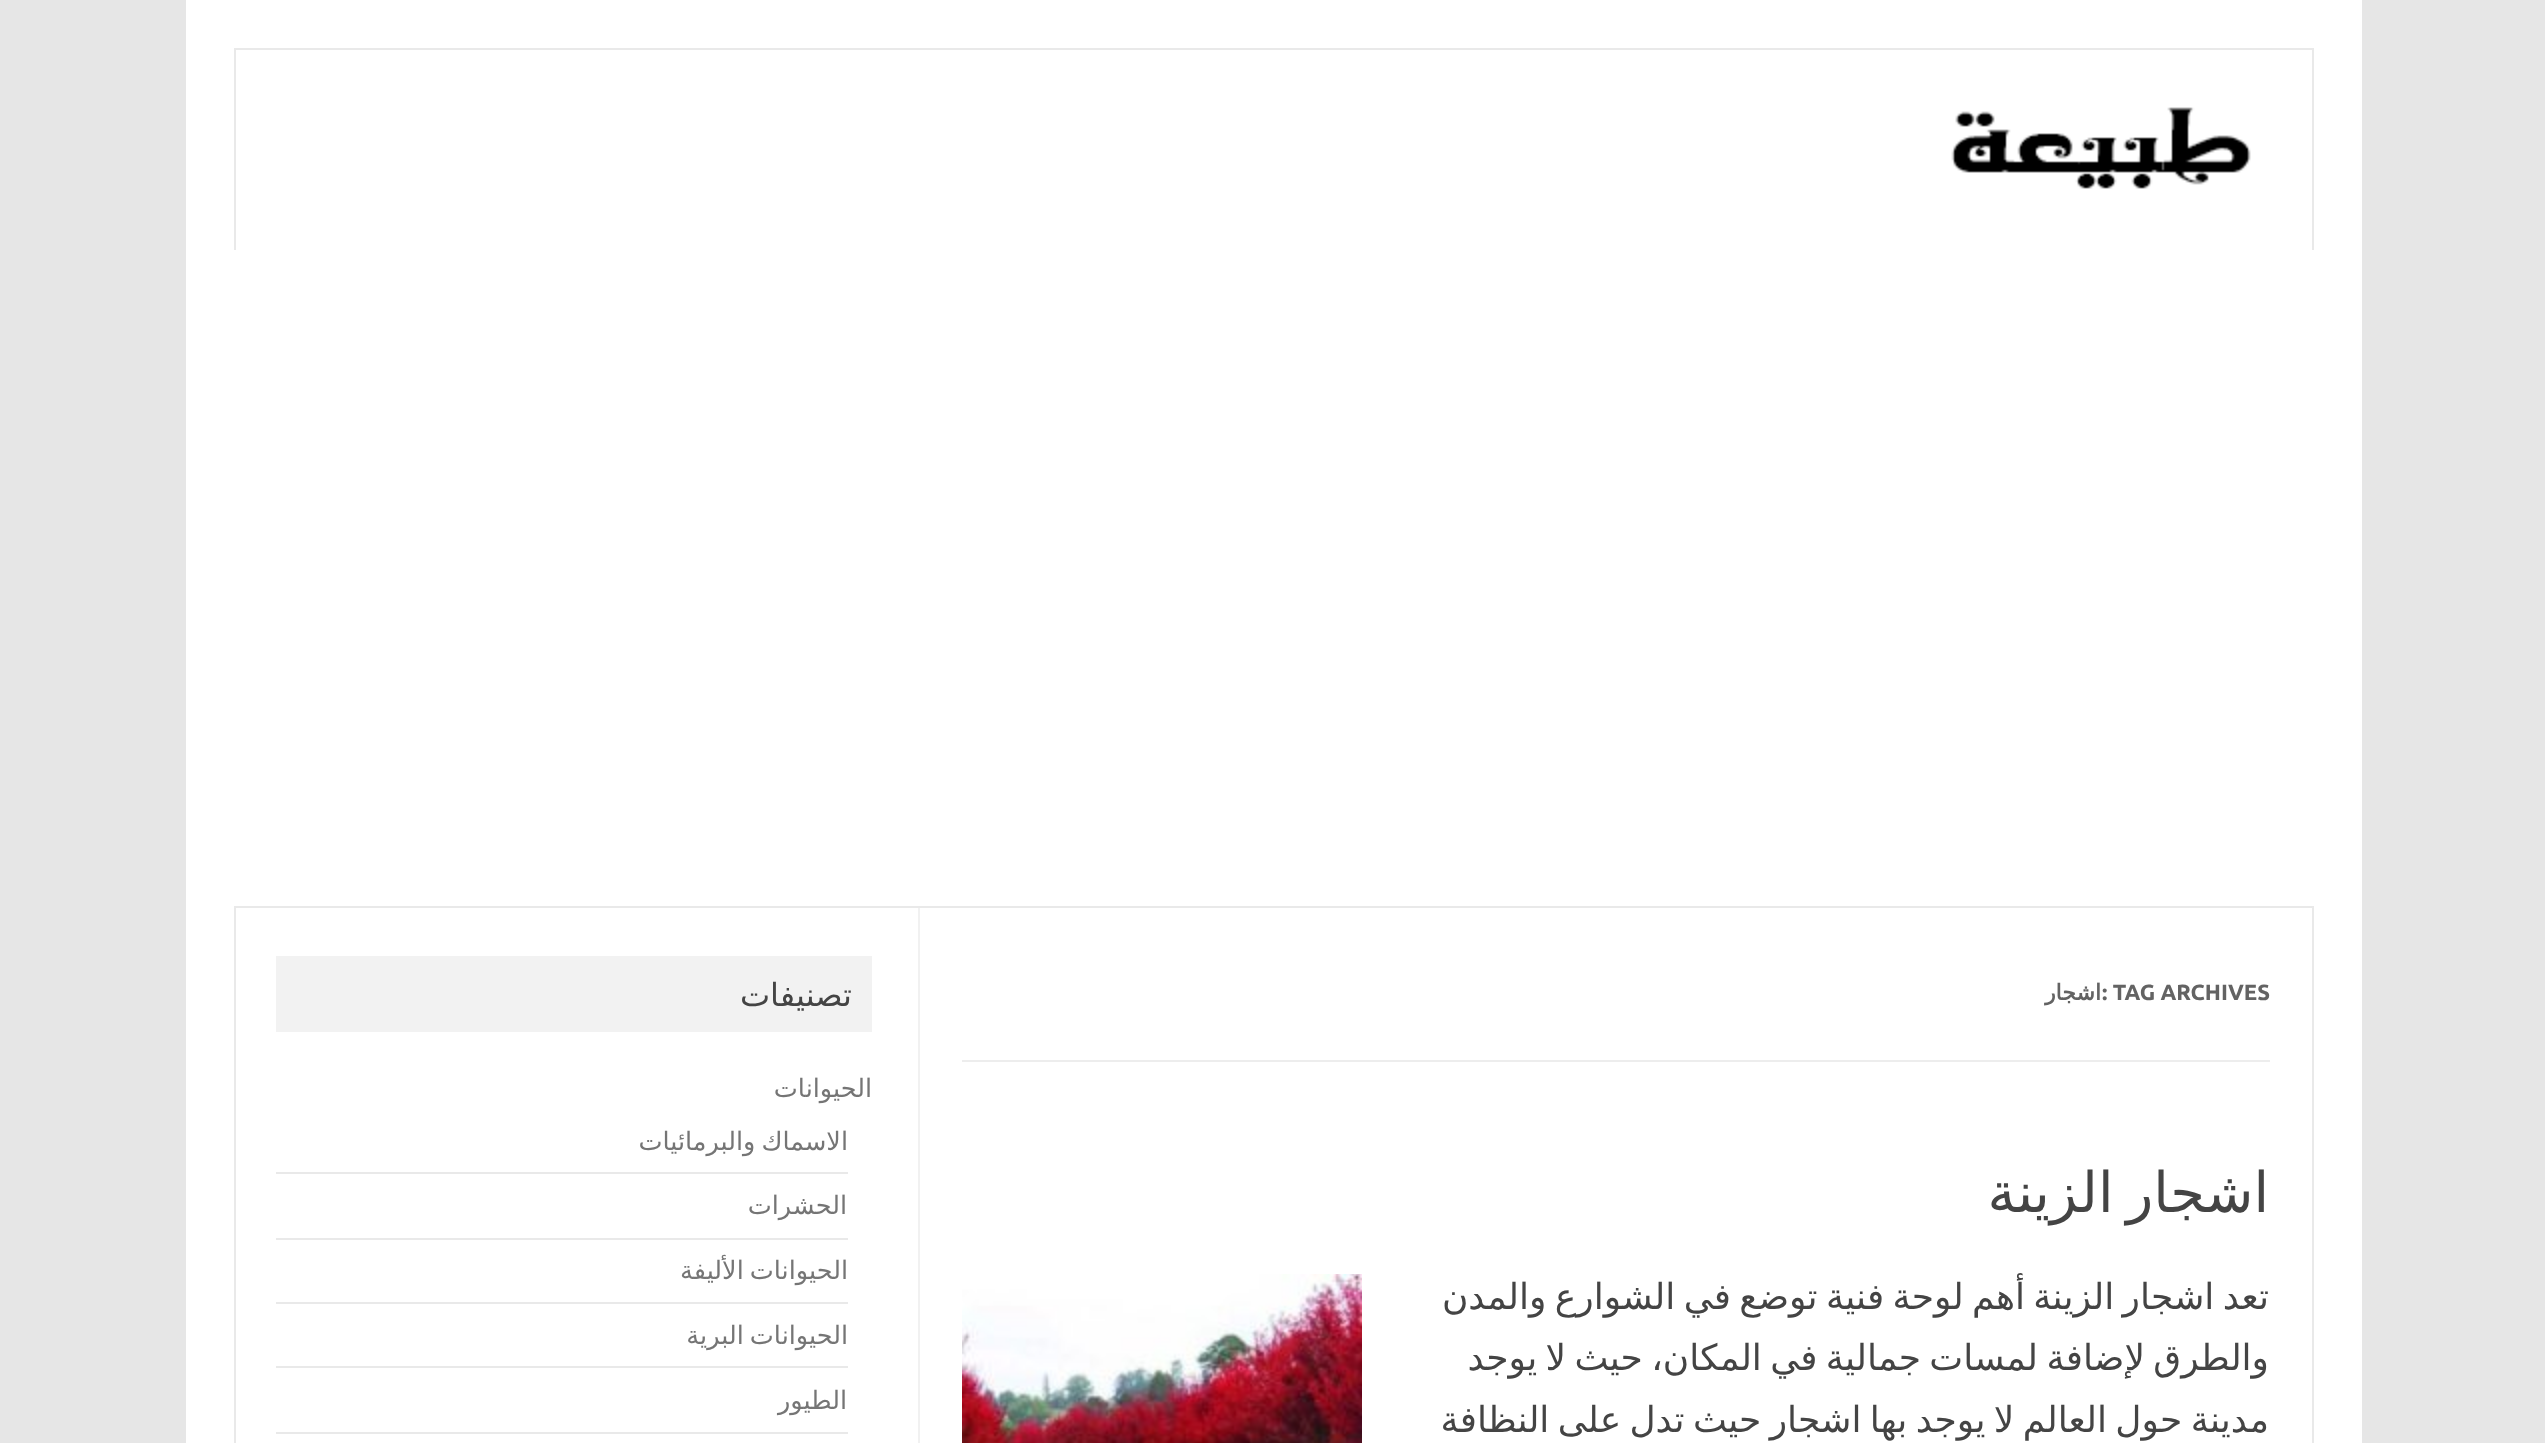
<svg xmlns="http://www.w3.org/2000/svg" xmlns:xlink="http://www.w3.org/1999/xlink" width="2545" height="1443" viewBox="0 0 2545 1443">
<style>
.cls-1{font:bold 22px Ubuntu;fill:#636363}
.cls-2{font:bold 22px DejaVu Sans;direction:rtl;fill:#636363}
.cls-3{font:56px DejaVu Sans;direction:rtl;fill:#444444}
.cls-4{font:36px DejaVu Sans;direction:rtl;fill:#444444}
.cls-5{font:32px DejaVu Sans;direction:rtl;fill:#444444}
.cls-6{font:25.5px DejaVu Sans;direction:rtl;fill:#757575}
</style>
<rect width="100%" height="100%" fill="#e6e6e6"/>
<rect fill="#ffffff" x="186" y="0" width="2176" height="1443"/>
<rect fill="#e9e9e9" x="234" y="48" width="2080" height="2"/>
<rect fill="#e9e9e9" x="2312" y="48" width="2" height="202"/>
<rect fill="#e9e9e9" x="234" y="48" width="2" height="202"/>
<image xlink:href="image0.png" x="1951" y="107" width="300" height="82"/>
<rect fill="none" stroke="#e9e9e9" stroke-width="2" x="235" y="907" width="2078" height="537"/>
<rect fill="#f1f1f1" x="918" y="908" width="2" height="535"/>
<rect fill="#ededed" x="962" y="1060" width="1308" height="2"/>
<image xlink:href="image1.png" x="962" y="1274" width="400" height="169"/>
<rect fill="#f2f2f2" x="276" y="956" width="596" height="76"/>
<rect fill="#e9e9e9" x="276" y="1172" width="572" height="2"/>
<rect fill="#e9e9e9" x="276" y="1238" width="572" height="2"/>
<rect fill="#e9e9e9" x="276" y="1302" width="572" height="2"/>
<rect fill="#e9e9e9" x="276" y="1366" width="572" height="2"/>
<rect fill="#e9e9e9" x="276" y="1432" width="572" height="2"/>
<text class="cls-1" x="2102" y="1000">: TAG ARCHIVES</text>
<text class="cls-2" x="2101" y="1000">اشجار</text>
<text class="cls-3" x="2269" y="1212" word-spacing="-5">اشجار الزينة</text>
<text class="cls-4"><tspan x="2269" y="1309" word-spacing="-3.1">تعد اشجار الزينة أهم لوحة فنية توضع في الشوارع والمدن</tspan><tspan x="2269" y="1370" word-spacing="-3.1">والطرق لإضافة لمسات جمالية في المكان، حيث لا يوجد</tspan><tspan x="2269" y="1432" word-spacing="-3.1">مدينة حول العالم لا يوجد بها اشجار حيث تدل على النظافة</tspan></text>
<text class="cls-5" x="852" y="1006">تصنيفات</text>
<text class="cls-6" x="872" y="1097">الحيوانات</text>
<text class="cls-6" x="848" y="1150" word-spacing="-2">الاسماك والبرمائيات</text>
<text class="cls-6" x="847" y="1214">الحشرات</text>
<text class="cls-6" x="848" y="1279" word-spacing="-2">الحيوانات الأليفة</text>
<text class="cls-6" x="848" y="1344" word-spacing="-2">الحيوانات البرية</text>
<text class="cls-6" x="847" y="1409">الطيور</text>
</svg>
